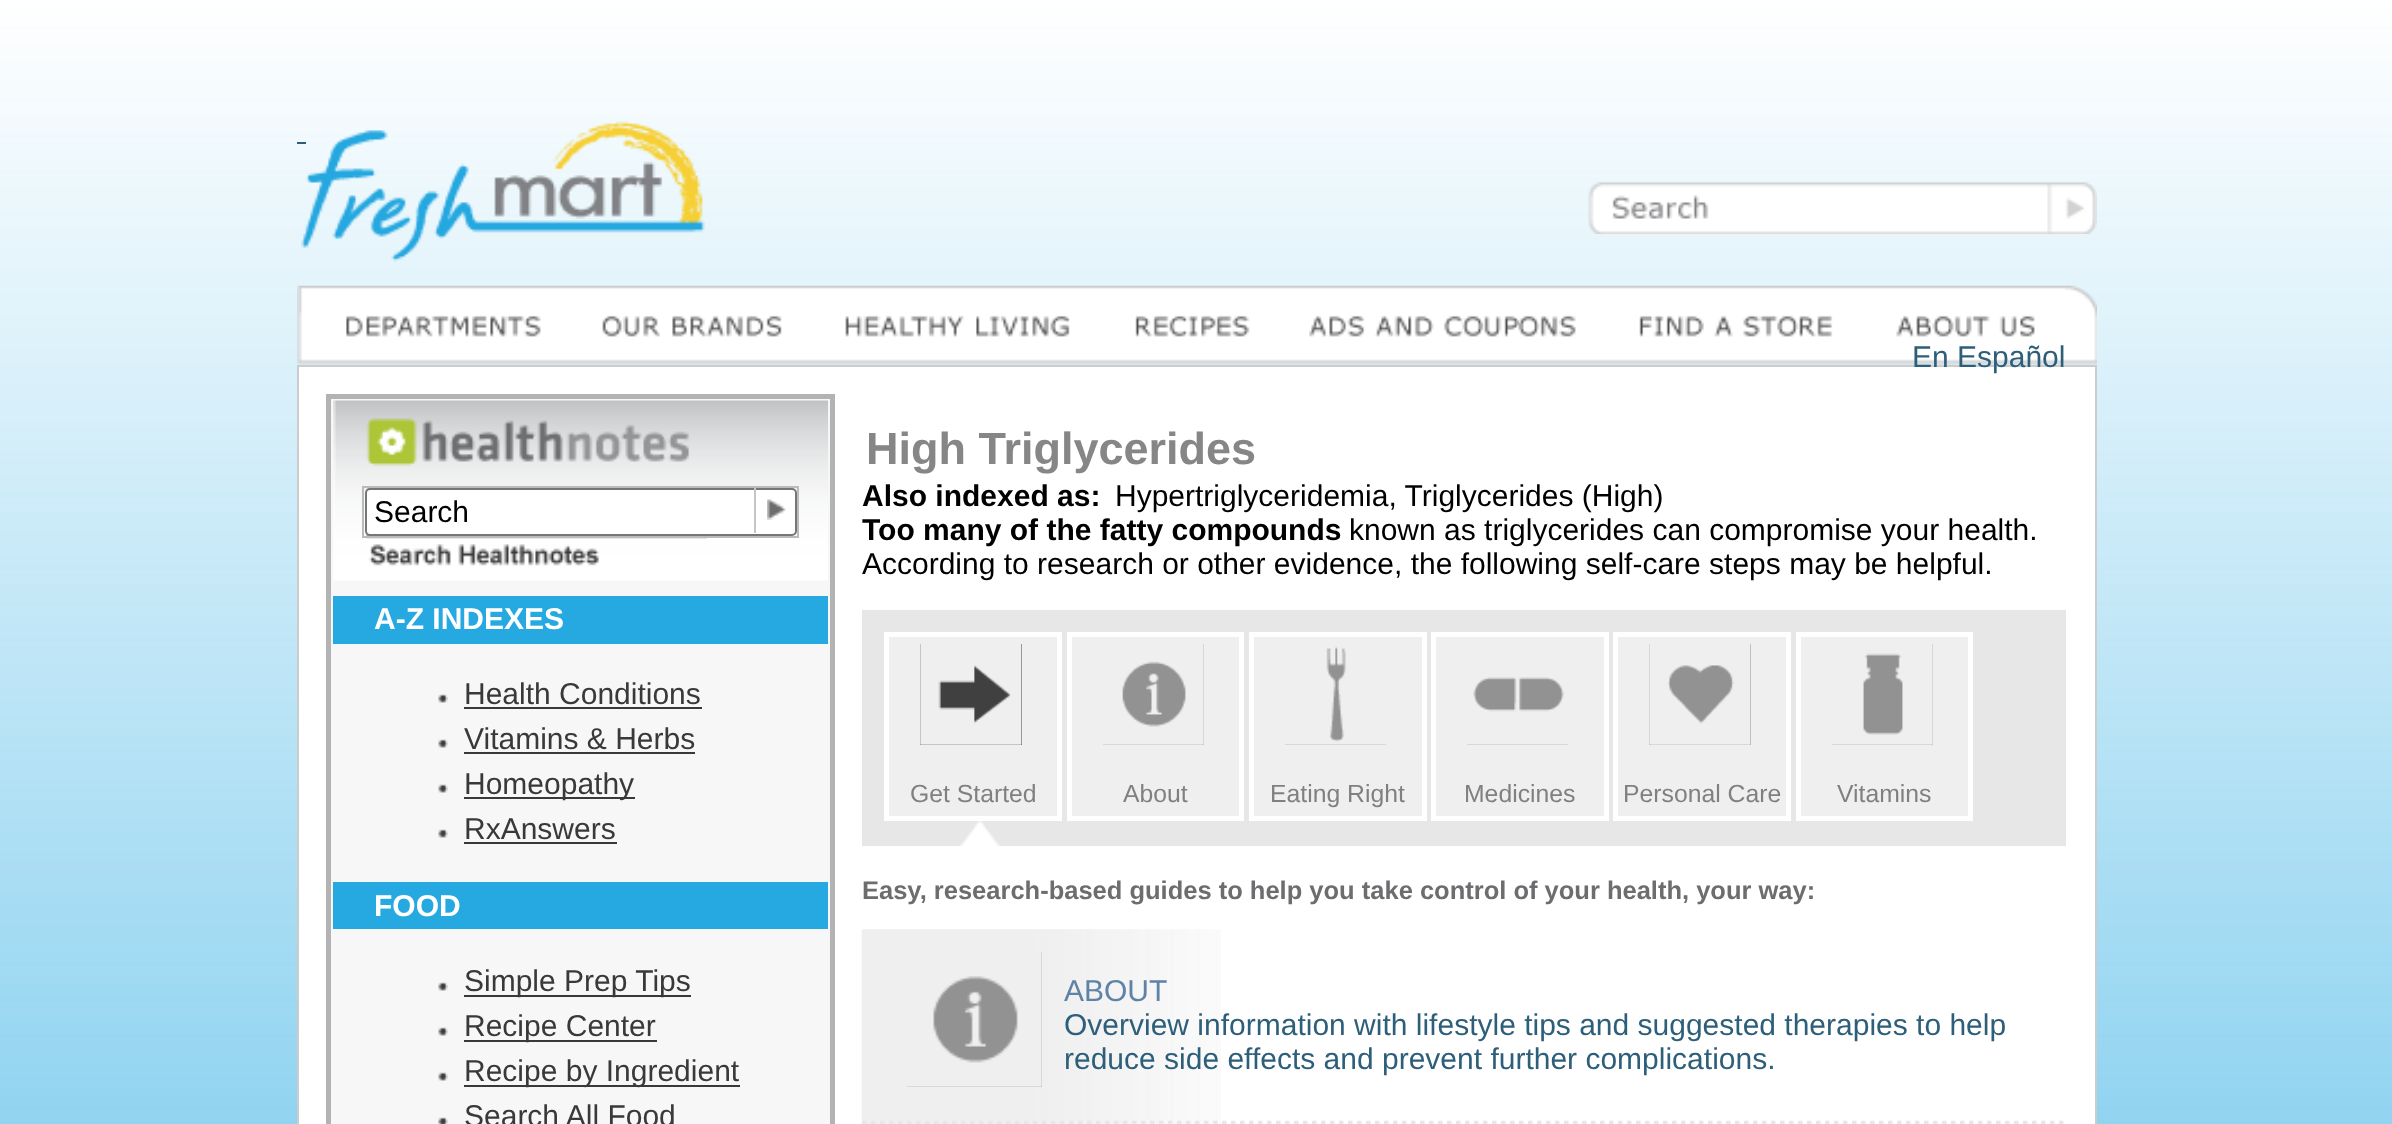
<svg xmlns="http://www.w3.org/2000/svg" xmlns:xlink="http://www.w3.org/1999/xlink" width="2392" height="1124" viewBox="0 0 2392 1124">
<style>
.cls-1{font:30px Liberation Sans;fill:#000000}
.cls-2{font:bold 30px Liberation Sans;fill:#ffffff}
.cls-3{font:30px Liberation Sans;fill:#393939}
.cls-4{font:30px Liberation Sans;fill:#2e5f7a}
.cls-5{font:bold 45px Liberation Sans;fill:#868686}
.cls-6{font:bold 30px Liberation Sans;fill:#000000}
.cls-7{font:24.75px Liberation Sans;fill:#808080}
.cls-8{font:bold 25.5px Liberation Sans;fill:#6d6d70}
.cls-9{font:30px Liberation Sans;fill:#5f83a7}
</style>
<rect width="100%" height="100%" fill="#ffffff"/>
<image xlink:href="image0.png" x="0" y="0" width="2392" height="1124"/>
<image xlink:href="image1.png" x="301" y="121" width="404" height="141"/>
<rect fill="#2e5f7a" x="297" y="142" width="9" height="2"/>
<image xlink:href="image2.png" x="1588" y="181" width="509" height="53"/>
<image xlink:href="image3.png" x="297" y="285" width="1800" height="80"/>
<rect fill="#ffffff" stroke="#cccccc" stroke-width="2" x="298" y="366" width="1798" height="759"/>
<rect fill="#f7f7f7" stroke="#b3b3b3" stroke-width="5" x="328.5" y="396.5" width="504" height="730"/>
<image xlink:href="image4.png" x="333" y="400" width="495" height="181"/>
<rect fill="none" stroke="#bbbbbb" stroke-width="2" x="363" y="487" width="435" height="50"/>
<rect fill="#ffffff" stroke="#767676" stroke-width="2" x="366" y="489" width="430" height="46" rx="4"/>
<rect fill="#c5c5c5" x="754" y="488" width="2" height="45"/>
<image xlink:href="image5.png" x="767" y="499" width="19" height="21"/>
<rect fill="#25a9e0" x="333" y="596" width="495" height="48"/>
<image xlink:href="image6.png" x="438" y="694" width="10" height="9"/>
<rect fill="#393939" x="464" y="707" width="238" height="2"/>
<image xlink:href="image6.png" x="438" y="739" width="10" height="9"/>
<rect fill="#393939" x="464" y="752" width="231" height="2"/>
<image xlink:href="image6.png" x="438" y="784" width="10" height="9"/>
<rect fill="#393939" x="464" y="797" width="171" height="2"/>
<image xlink:href="image6.png" x="438" y="829" width="10" height="9"/>
<rect fill="#393939" x="464" y="842" width="153" height="2"/>
<rect fill="#25a9e0" x="333" y="882" width="495" height="47"/>
<image xlink:href="image6.png" x="438" y="982" width="10" height="9"/>
<rect fill="#393939" x="464" y="995" width="227" height="2"/>
<image xlink:href="image6.png" x="438" y="1027" width="10" height="9"/>
<rect fill="#393939" x="464" y="1040" width="193" height="2"/>
<image xlink:href="image6.png" x="438" y="1072" width="10" height="9"/>
<rect fill="#393939" x="464" y="1085" width="276" height="2"/>
<image xlink:href="image7.png" x="438" y="1117" width="10" height="7"/>
<rect fill="#e7e7e7" x="862" y="610" width="1204" height="236"/>
<rect fill="#efefef" stroke="#ffffff" stroke-width="5" x="886.5" y="634.5" width="173" height="184"/>
<image xlink:href="image8.png" x="960" y="821" width="40" height="25"/>
<rect fill="#404040" x="920" y="644" width="102" height="101"/>
<image xlink:href="image9.png" x="920" y="644" width="102" height="101"/>
<rect fill="#efefef" stroke="#ffffff" stroke-width="5" x="1069.5" y="634.5" width="172" height="184"/>
<rect fill="#929292" x="1103" y="644" width="101" height="101"/>
<image xlink:href="image10.png" x="1103" y="644" width="101" height="101"/>
<rect fill="#efefef" stroke="#ffffff" stroke-width="5" x="1251.5" y="634.5" width="173" height="184"/>
<rect fill="#929292" x="1285" y="646" width="101" height="99"/>
<image xlink:href="image11.png" x="1285" y="644" width="101" height="101"/>
<rect fill="#efefef" stroke="#ffffff" stroke-width="5" x="1433.5" y="634.5" width="173" height="184"/>
<rect fill="#929292" x="1467" y="677" width="101" height="68"/>
<image xlink:href="image12.png" x="1467" y="644" width="101" height="101"/>
<rect fill="#efefef" stroke="#ffffff" stroke-width="5" x="1615.5" y="634.5" width="173" height="184"/>
<rect fill="#929292" x="1649" y="644" width="102" height="101"/>
<image xlink:href="image13.png" x="1649" y="644" width="102" height="101"/>
<rect fill="#efefef" stroke="#ffffff" stroke-width="5" x="1798.5" y="634.5" width="172" height="184"/>
<rect fill="#929292" x="1832" y="644" width="101" height="101"/>
<image xlink:href="image14.png" x="1832" y="644" width="101" height="101"/>
<image xlink:href="image15.png" x="861" y="929" width="360" height="195"/>
<path fill="none" stroke="#e7e7e7" stroke-width="4.5" stroke-dasharray="4.5 4.5" d="M862 1123H2065.5"/>
<rect fill="#929292" x="907" y="952" width="135" height="135"/>
<image xlink:href="image16.png" x="907" y="952" width="135" height="135"/>
<text class="cls-1" x="374" y="522">Search</text>
<text class="cls-2" x="374" y="629">A-Z INDEXES</text>
<text class="cls-3"><tspan x="464" y="704">Health Conditions</tspan><tspan x="464" y="749">Vitamins &amp; Herbs</tspan><tspan x="464" y="794">Homeopathy</tspan><tspan x="464" y="839">RxAnswers</tspan></text>
<text class="cls-2" x="374" y="916">FOOD</text>
<text class="cls-3"><tspan x="464" y="991">Simple Prep Tips</tspan><tspan x="464" y="1036">Recipe Center</tspan><tspan x="464" y="1081">Recipe by Ingredient</tspan><tspan x="464" y="1126">Search All Food</tspan></text>
<text class="cls-4" x="1912" y="367">En Español</text>
<text class="cls-5" x="866" y="464">High Triglycerides</text>
<text class="cls-6" x="862" y="506">Also indexed as:</text>
<text class="cls-1" x="1115" y="506">Hypertriglyceridemia, Triglycerides (High)</text>
<text class="cls-6" x="862" y="540">Too many of the fatty compounds</text>
<text class="cls-1" x="1349" y="540">known as triglycerides can compromise your health.</text>
<text class="cls-1" x="862" y="574">According to research or other evidence, the following self-care steps may be helpful.</text>
<text class="cls-7" x="910" y="802">Get Started</text>
<text class="cls-7" x="1123" y="802">About</text>
<text class="cls-7" x="1270" y="802">Eating Right</text>
<text class="cls-7" x="1464" y="802">Medicines</text>
<text class="cls-7" x="1623" y="802">Personal Care</text>
<text class="cls-7" x="1837" y="802">Vitamins</text>
<text class="cls-8" x="862" y="899">Easy, research-based guides to help you take control of your health, your way:</text>
<text class="cls-9" x="1064" y="1001">ABOUT</text>
<text class="cls-4"><tspan x="1064" y="1035">Overview information with lifestyle tips and suggested therapies to help</tspan><tspan x="1064" y="1069">reduce side effects and prevent further complications.</tspan></text>
</svg>
